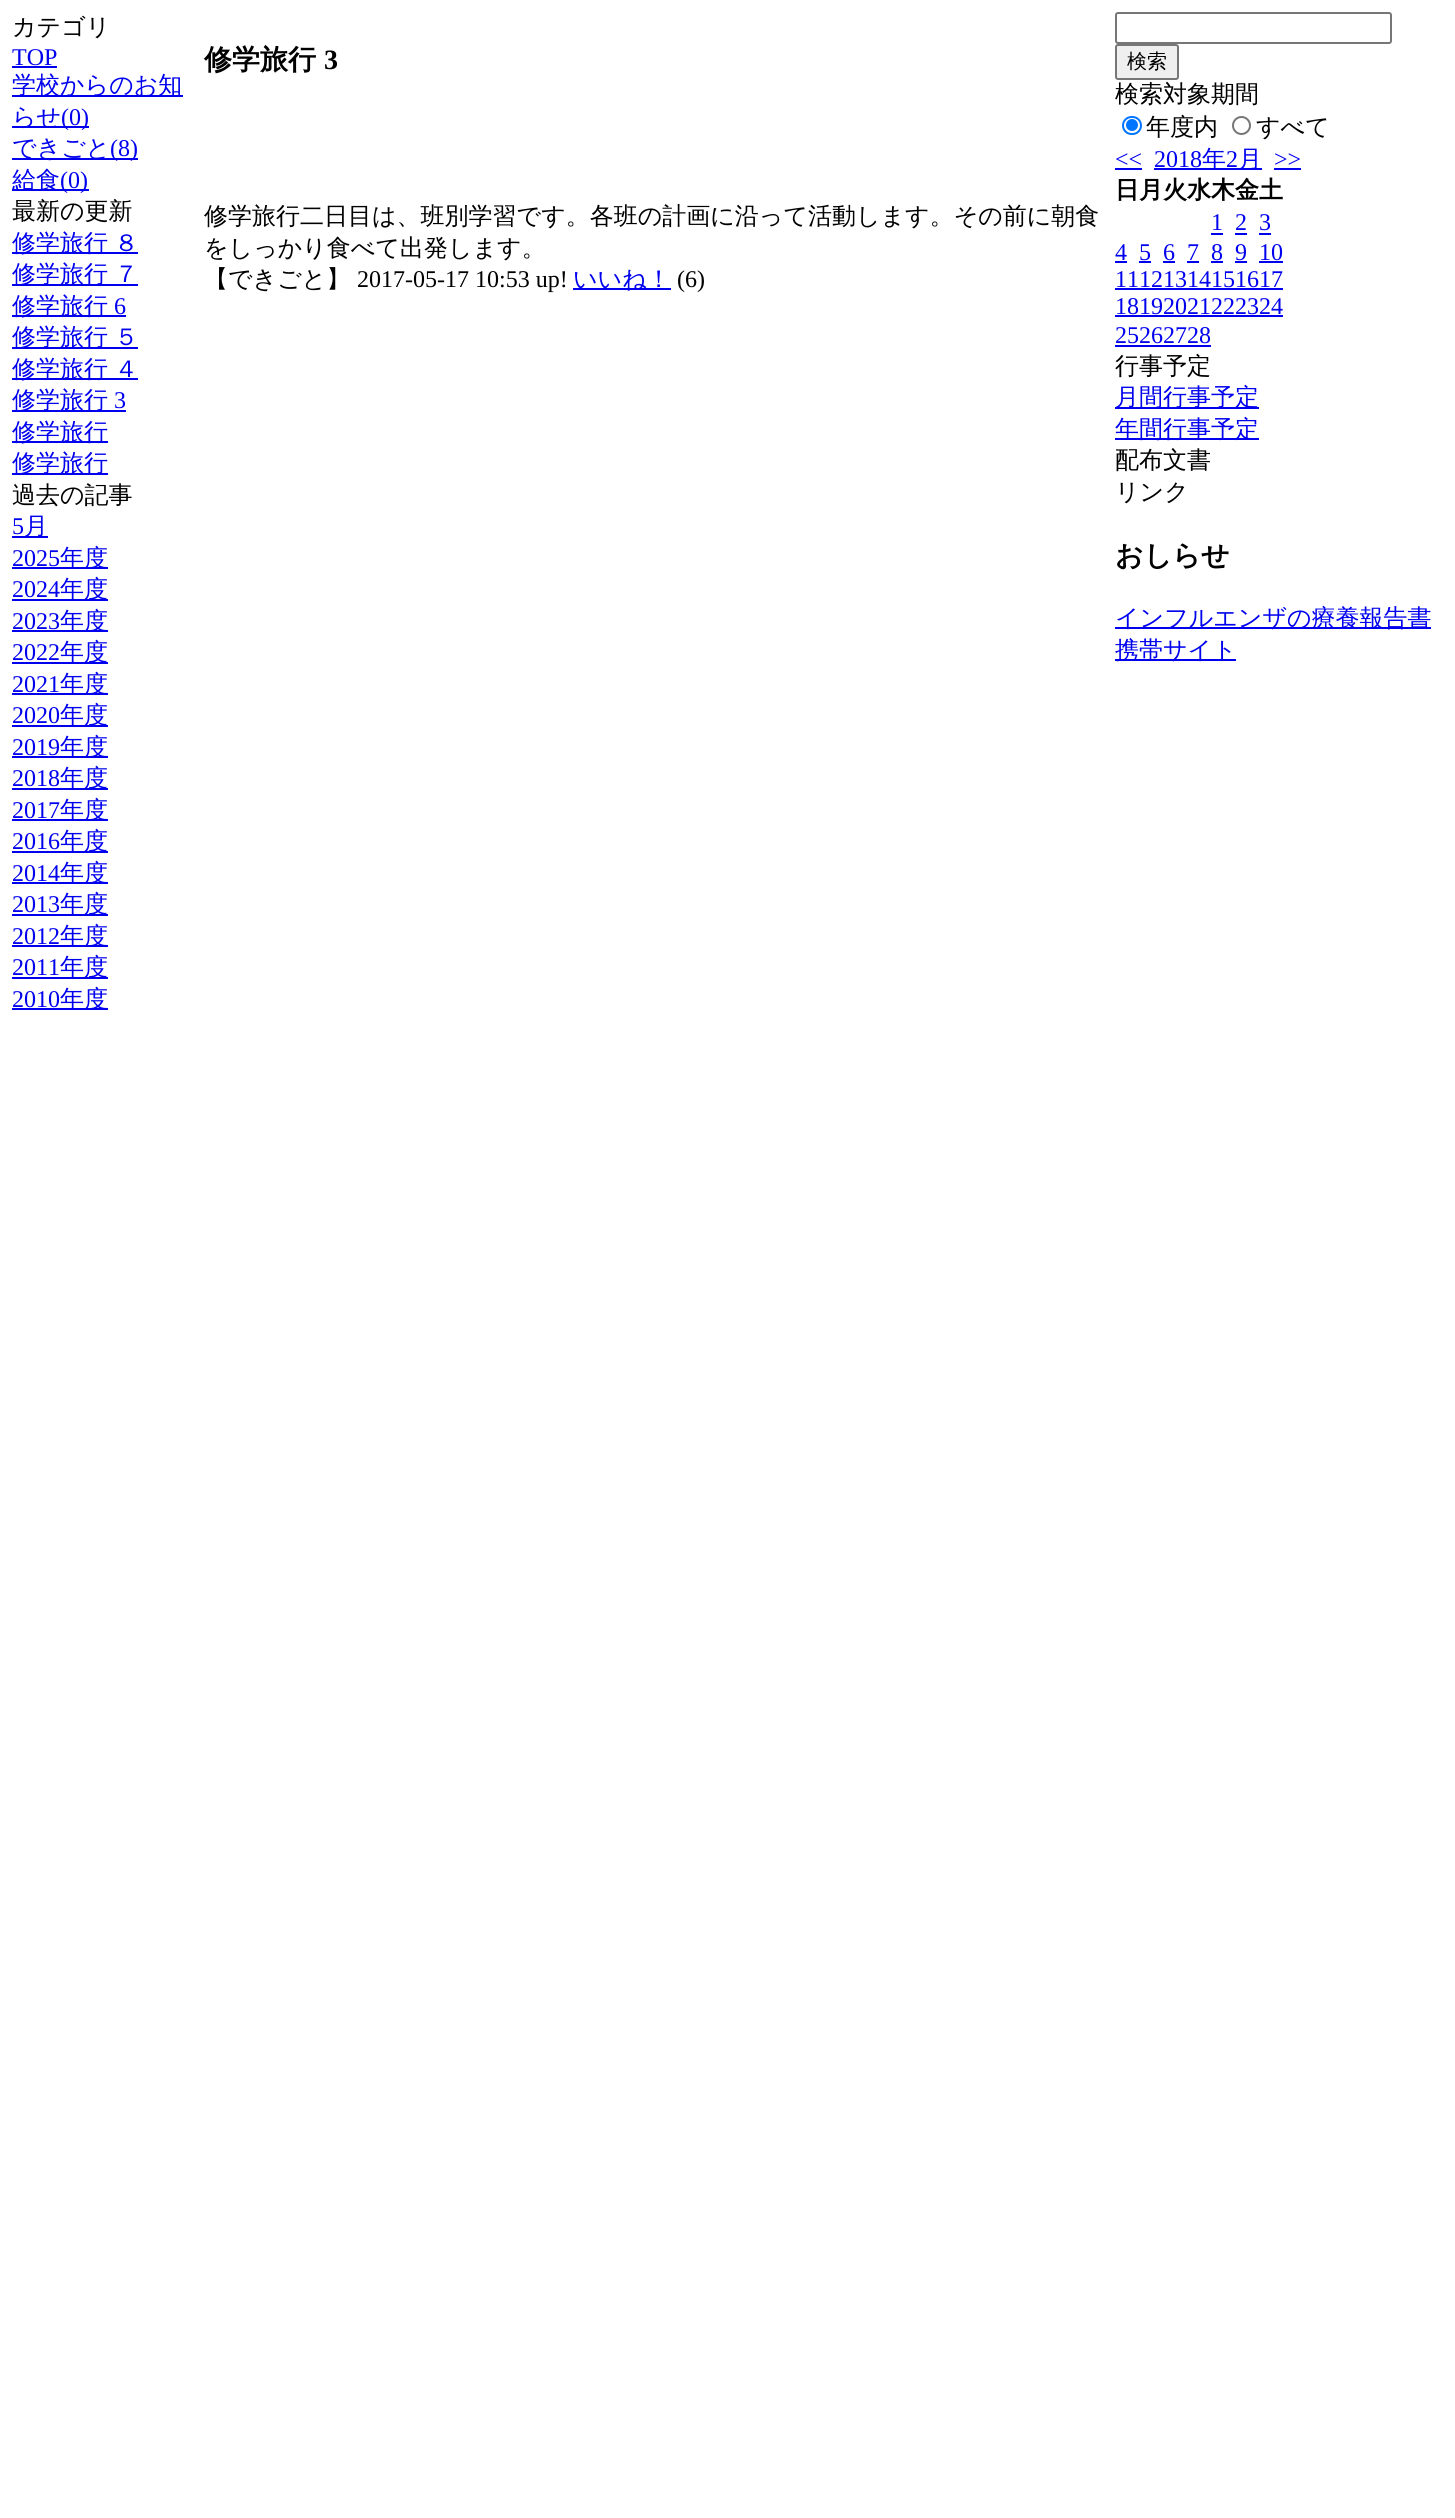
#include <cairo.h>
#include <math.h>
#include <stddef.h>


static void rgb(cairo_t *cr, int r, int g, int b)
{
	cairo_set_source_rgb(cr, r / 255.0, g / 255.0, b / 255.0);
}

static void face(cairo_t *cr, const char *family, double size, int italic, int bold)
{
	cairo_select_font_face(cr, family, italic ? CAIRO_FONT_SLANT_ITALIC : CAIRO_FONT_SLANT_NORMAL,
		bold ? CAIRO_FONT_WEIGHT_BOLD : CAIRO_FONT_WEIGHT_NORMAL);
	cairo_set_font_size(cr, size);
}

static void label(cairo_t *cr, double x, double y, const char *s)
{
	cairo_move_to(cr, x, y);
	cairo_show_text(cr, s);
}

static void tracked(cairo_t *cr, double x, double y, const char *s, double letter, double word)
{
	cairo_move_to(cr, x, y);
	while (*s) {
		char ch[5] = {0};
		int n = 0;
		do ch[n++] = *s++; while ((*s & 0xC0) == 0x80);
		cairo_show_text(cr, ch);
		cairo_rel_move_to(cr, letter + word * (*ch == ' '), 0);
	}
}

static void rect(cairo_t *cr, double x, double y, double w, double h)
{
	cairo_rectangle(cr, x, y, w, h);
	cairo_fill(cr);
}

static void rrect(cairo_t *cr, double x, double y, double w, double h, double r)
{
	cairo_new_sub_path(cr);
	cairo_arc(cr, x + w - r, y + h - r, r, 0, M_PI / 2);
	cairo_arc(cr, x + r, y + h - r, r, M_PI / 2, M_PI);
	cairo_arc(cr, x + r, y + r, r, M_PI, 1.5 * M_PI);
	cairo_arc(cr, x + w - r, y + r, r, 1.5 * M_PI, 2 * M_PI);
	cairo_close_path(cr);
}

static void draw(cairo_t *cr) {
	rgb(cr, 255, 255, 255);
	cairo_paint(cr);
	face(cr, "WenQuanYi Zen Hei Medium", 24, 0, 0);
	rgb(cr, 0, 0, 0);
	label(cr, 12, 35, "カテゴリ");
	face(cr, "Liberation Serif", 24, 0, 0);
	rgb(cr, 0, 0, 238);
	label(cr, 12, 65, "TOP");
	rect(cr, 12, 66, 45, 2);
	rect(cr, 12, 95, 171, 2);
	face(cr, "WenQuanYi Zen Hei Medium", 24, 0, 0);
	label(cr, 12, 93, "学校からのお知");
	rect(cr, 12, 126, 77, 2);
	label(cr, 12, 125, "らせ");
	face(cr, "Liberation Serif", 24, 0, 0);
	label(cr, 61, 125, "(0)");
	rect(cr, 12, 158, 126, 2);
	face(cr, "WenQuanYi Zen Hei Medium", 24, 0, 0);
	label(cr, 12, 156, "できごと");
	face(cr, "Liberation Serif", 24, 0, 0);
	label(cr, 110, 156, "(8)");
	rect(cr, 12, 189, 77, 2);
	face(cr, "WenQuanYi Zen Hei Medium", 24, 0, 0);
	label(cr, 12, 188, "給食");
	face(cr, "Liberation Serif", 24, 0, 0);
	label(cr, 60, 188, "(0)");
	face(cr, "WenQuanYi Zen Hei Medium", 24, 0, 0);
	rgb(cr, 0, 0, 0);
	label(cr, 12, 219, "最新の更新");
	rgb(cr, 0, 0, 238);
	rect(cr, 12, 252, 126, 2);
	tracked(cr, 12, 251, "修学旅行 ８", 0, -1);
	rect(cr, 12, 284, 126, 2);
	tracked(cr, 12, 282, "修学旅行 ７", 0, -1);
	rect(cr, 12, 315, 114, 2);
	label(cr, 12, 314, "修学旅行");
	face(cr, "Liberation Serif", 24, 0, 0);
	label(cr, 114, 314, "6");
	rect(cr, 12, 347, 126, 2);
	face(cr, "WenQuanYi Zen Hei Medium", 24, 0, 0);
	tracked(cr, 12, 345, "修学旅行 ５", 0, -1);
	rect(cr, 12, 378, 126, 2);
	tracked(cr, 12, 377, "修学旅行 ４", 0, -1);
	rect(cr, 12, 410, 114, 2);
	label(cr, 12, 408, "修学旅行");
	face(cr, "Liberation Serif", 24, 0, 0);
	label(cr, 114, 408, "3");
	rect(cr, 12, 441, 96, 2);
	face(cr, "WenQuanYi Zen Hei Medium", 24, 0, 0);
	label(cr, 12, 440, "修学旅行");
	rect(cr, 12, 473, 96, 2);
	label(cr, 12, 471, "修学旅行");
	rgb(cr, 0, 0, 0);
	label(cr, 12, 503, "過去の記事");
	face(cr, "Liberation Serif", 24, 0, 0);
	rgb(cr, 0, 0, 238);
	label(cr, 12, 534, "5");
	rect(cr, 12, 536, 36, 2);
	face(cr, "WenQuanYi Zen Hei Medium", 24, 0, 0);
	label(cr, 24, 534, "月");
	face(cr, "Liberation Serif", 24, 0, 0);
	label(cr, 12, 566, "2025");
	rect(cr, 12, 567, 96, 2);
	face(cr, "WenQuanYi Zen Hei Medium", 24, 0, 0);
	label(cr, 60, 566, "年度");
	face(cr, "Liberation Serif", 24, 0, 0);
	label(cr, 12, 597, "2024");
	rect(cr, 12, 599, 96, 2);
	face(cr, "WenQuanYi Zen Hei Medium", 24, 0, 0);
	label(cr, 60, 597, "年度");
	face(cr, "Liberation Serif", 24, 0, 0);
	label(cr, 12, 629, "2023");
	rect(cr, 12, 630, 96, 2);
	face(cr, "WenQuanYi Zen Hei Medium", 24, 0, 0);
	label(cr, 60, 629, "年度");
	face(cr, "Liberation Serif", 24, 0, 0);
	label(cr, 12, 660, "2022");
	rect(cr, 12, 662, 96, 2);
	face(cr, "WenQuanYi Zen Hei Medium", 24, 0, 0);
	label(cr, 60, 660, "年度");
	face(cr, "Liberation Serif", 24, 0, 0);
	label(cr, 12, 692, "2021");
	rect(cr, 12, 693, 96, 2);
	face(cr, "WenQuanYi Zen Hei Medium", 24, 0, 0);
	label(cr, 60, 692, "年度");
	face(cr, "Liberation Serif", 24, 0, 0);
	label(cr, 12, 723, "2020");
	rect(cr, 12, 725, 96, 2);
	face(cr, "WenQuanYi Zen Hei Medium", 24, 0, 0);
	label(cr, 60, 723, "年度");
	face(cr, "Liberation Serif", 24, 0, 0);
	label(cr, 12, 755, "2019");
	rect(cr, 12, 756, 96, 2);
	face(cr, "WenQuanYi Zen Hei Medium", 24, 0, 0);
	label(cr, 60, 755, "年度");
	face(cr, "Liberation Serif", 24, 0, 0);
	label(cr, 12, 786, "2018");
	rect(cr, 12, 788, 96, 2);
	face(cr, "WenQuanYi Zen Hei Medium", 24, 0, 0);
	label(cr, 60, 786, "年度");
	face(cr, "Liberation Serif", 24, 0, 0);
	label(cr, 12, 818, "2017");
	rect(cr, 12, 819, 96, 2);
	face(cr, "WenQuanYi Zen Hei Medium", 24, 0, 0);
	label(cr, 60, 818, "年度");
	face(cr, "Liberation Serif", 24, 0, 0);
	label(cr, 12, 849, "2016");
	rect(cr, 12, 851, 96, 2);
	face(cr, "WenQuanYi Zen Hei Medium", 24, 0, 0);
	label(cr, 60, 849, "年度");
	face(cr, "Liberation Serif", 24, 0, 0);
	label(cr, 12, 881, "2014");
	rect(cr, 12, 882, 96, 2);
	face(cr, "WenQuanYi Zen Hei Medium", 24, 0, 0);
	label(cr, 60, 881, "年度");
	face(cr, "Liberation Serif", 24, 0, 0);
	label(cr, 12, 912, "2013");
	rect(cr, 12, 914, 96, 2);
	face(cr, "WenQuanYi Zen Hei Medium", 24, 0, 0);
	label(cr, 60, 912, "年度");
	face(cr, "Liberation Serif", 24, 0, 0);
	label(cr, 12, 944, "2012");
	rect(cr, 12, 945, 96, 2);
	face(cr, "WenQuanYi Zen Hei Medium", 24, 0, 0);
	label(cr, 60, 944, "年度");
	face(cr, "Liberation Serif", 24, 0, 0);
	label(cr, 12, 975, "2011");
	rect(cr, 12, 977, 96, 2);
	face(cr, "WenQuanYi Zen Hei Medium", 24, 0, 0);
	label(cr, 60, 975, "年度");
	face(cr, "Liberation Serif", 24, 0, 0);
	label(cr, 12, 1007, "2010");
	rect(cr, 12, 1008, 96, 2);
	face(cr, "WenQuanYi Zen Hei Medium", 24, 0, 0);
	label(cr, 60, 1007, "年度");
	face(cr, "WenQuanYi Zen Hei", 28, 0, 1);
	rgb(cr, 0, 0, 0);
	label(cr, 204, 69, "修学旅行");
	face(cr, "Liberation Serif", 28, 0, 1);
	label(cr, 324, 69, "3");
	face(cr, "WenQuanYi Zen Hei Medium", 24, 0, 0);
	label(cr, 204, 224, "修学旅行二日目は、班別学習です。各班の計画に沿って活動します。その前に朝食");
	label(cr, 204, 256, "をしっかり食べて出発します。");
	label(cr, 204, 287, "【できごと】");
	face(cr, "Liberation Serif", 24, 0, 0);
	label(cr, 357, 287, "2017-05-17 10:53 up!");
	rgb(cr, 0, 0, 238);
	rect(cr, 573, 288, 98, 2);
	face(cr, "WenQuanYi Zen Hei Medium", 24, 0, 0);
	label(cr, 573, 287, "いいね！");
	face(cr, "Liberation Serif", 24, 0, 0);
	rgb(cr, 0, 0, 0);
	label(cr, 677, 287, "(6)");
	rrect(cr, 1116, 13, 275, 30, 2);
	rgb(cr, 118, 118, 118);
	cairo_stroke(cr);
	rgb(cr, 239, 239, 239);
	rrect(cr, 1116, 45, 62, 34, 2);
	cairo_fill_preserve(cr);
	rgb(cr, 118, 118, 118);
	cairo_stroke(cr);
	face(cr, "WenQuanYi Zen Hei Medium", 20, 0, 0);
	rgb(cr, 0, 0, 0);
	label(cr, 1127, 68, "検索");
	face(cr, "WenQuanYi Zen Hei Medium", 24, 0, 0);
	label(cr, 1115, 102, "検索対象期間");
	rrect(cr, 1123, 117, 18, 17, 8.5);
	rgb(cr, 0, 117, 255);
	cairo_stroke(cr);
	cairo_arc(cr, 1132, 125, 6, 0, 2 * M_PI);
	cairo_fill(cr);
	rgb(cr, 0, 0, 0);
	label(cr, 1146, 135, "年度内");
	cairo_new_path(cr);
	cairo_arc(cr, 1241.5, 125.5, 8.5, 0, 2 * M_PI);
	rgb(cr, 118, 118, 118);
	cairo_stroke(cr);
	rgb(cr, 0, 0, 0);
	label(cr, 1256, 135, "すべて");
	face(cr, "Liberation Serif", 24, 0, 0);
	rgb(cr, 0, 0, 238);
	label(cr, 1115, 167, "<<");
	rect(cr, 1115, 168, 27, 2);
	label(cr, 1154, 167, "2018");
	rect(cr, 1154, 168, 108, 2);
	face(cr, "WenQuanYi Zen Hei Medium", 24, 0, 0);
	label(cr, 1202, 167, "年");
	face(cr, "Liberation Serif", 24, 0, 0);
	label(cr, 1226, 167, "2");
	face(cr, "WenQuanYi Zen Hei Medium", 24, 0, 0);
	label(cr, 1238, 167, "月");
	face(cr, "Liberation Serif", 24, 0, 0);
	label(cr, 1274, 167, ">>");
	rect(cr, 1274, 168, 27, 2);
	face(cr, "WenQuanYi Zen Hei", 24, 0, 1);
	rgb(cr, 0, 0, 0);
	label(cr, 1115, 198, "日月火水木金土");
	face(cr, "Liberation Serif", 24, 0, 0);
	rgb(cr, 0, 0, 238);
	label(cr, 1211, 230, "1");
	rect(cr, 1211, 233, 12, 2);
	label(cr, 1235, 230, "2");
	rect(cr, 1235, 233, 12, 2);
	label(cr, 1259, 230, "3");
	rect(cr, 1259, 233, 12, 2);
	label(cr, 1115, 260, "4");
	rect(cr, 1115, 261, 12, 2);
	label(cr, 1139, 260, "5");
	rect(cr, 1139, 261, 12, 2);
	label(cr, 1163, 260, "6");
	rect(cr, 1163, 261, 12, 2);
	label(cr, 1187, 260, "7");
	rect(cr, 1187, 261, 12, 2);
	label(cr, 1211, 260, "8");
	rect(cr, 1211, 261, 12, 2);
	label(cr, 1235, 260, "9");
	rect(cr, 1235, 261, 12, 2);
	label(cr, 1259, 260, "10");
	rect(cr, 1259, 261, 24, 2);
	label(cr, 1115, 287, "11121314151617");
	rect(cr, 1115, 288, 168, 2);
	label(cr, 1115, 314, "18192021222324");
	rect(cr, 1115, 315, 168, 2);
	label(cr, 1115, 343, "25262728");
	rect(cr, 1115, 345, 96, 2);
	face(cr, "WenQuanYi Zen Hei Medium", 24, 0, 0);
	rgb(cr, 0, 0, 0);
	label(cr, 1115, 374, "行事予定");
	rgb(cr, 0, 0, 238);
	rect(cr, 1115, 407, 144, 2);
	label(cr, 1115, 405, "月間行事予定");
	rect(cr, 1115, 438, 144, 2);
	label(cr, 1115, 437, "年間行事予定");
	rgb(cr, 0, 0, 0);
	label(cr, 1115, 468, "配布文書");
	label(cr, 1115, 500, "リンク");
	face(cr, "WenQuanYi Zen Hei", 28, 0, 1);
	label(cr, 1115, 565, "おしらせ");
	rgb(cr, 0, 0, 238);
	rect(cr, 1115, 627, 316, 2);
	face(cr, "WenQuanYi Zen Hei Medium", 24, 0, 0);
	label(cr, 1115, 626, "インフルエンザの療養報告書");
	rect(cr, 1115, 659, 121, 2);
	label(cr, 1115, 658, "携帯サイト");
}

int main(void) {
	cairo_surface_t *surface = cairo_image_surface_create(CAIRO_FORMAT_RGB24, 1455, 2518);
	cairo_t *cr = cairo_create(surface);
	cairo_font_options_t *options = cairo_font_options_create();
	cairo_font_options_set_hint_metrics(options, CAIRO_HINT_METRICS_OFF);
	cairo_font_options_set_hint_style(options, CAIRO_HINT_STYLE_NONE);
	cairo_set_font_options(cr, options);
	cairo_set_miter_limit(cr, 4);
	draw(cr);
	cairo_surface_write_to_png(surface, "render.png");
	cairo_font_options_destroy(options);
	cairo_destroy(cr);
	cairo_surface_destroy(surface);
	return 0;
}
